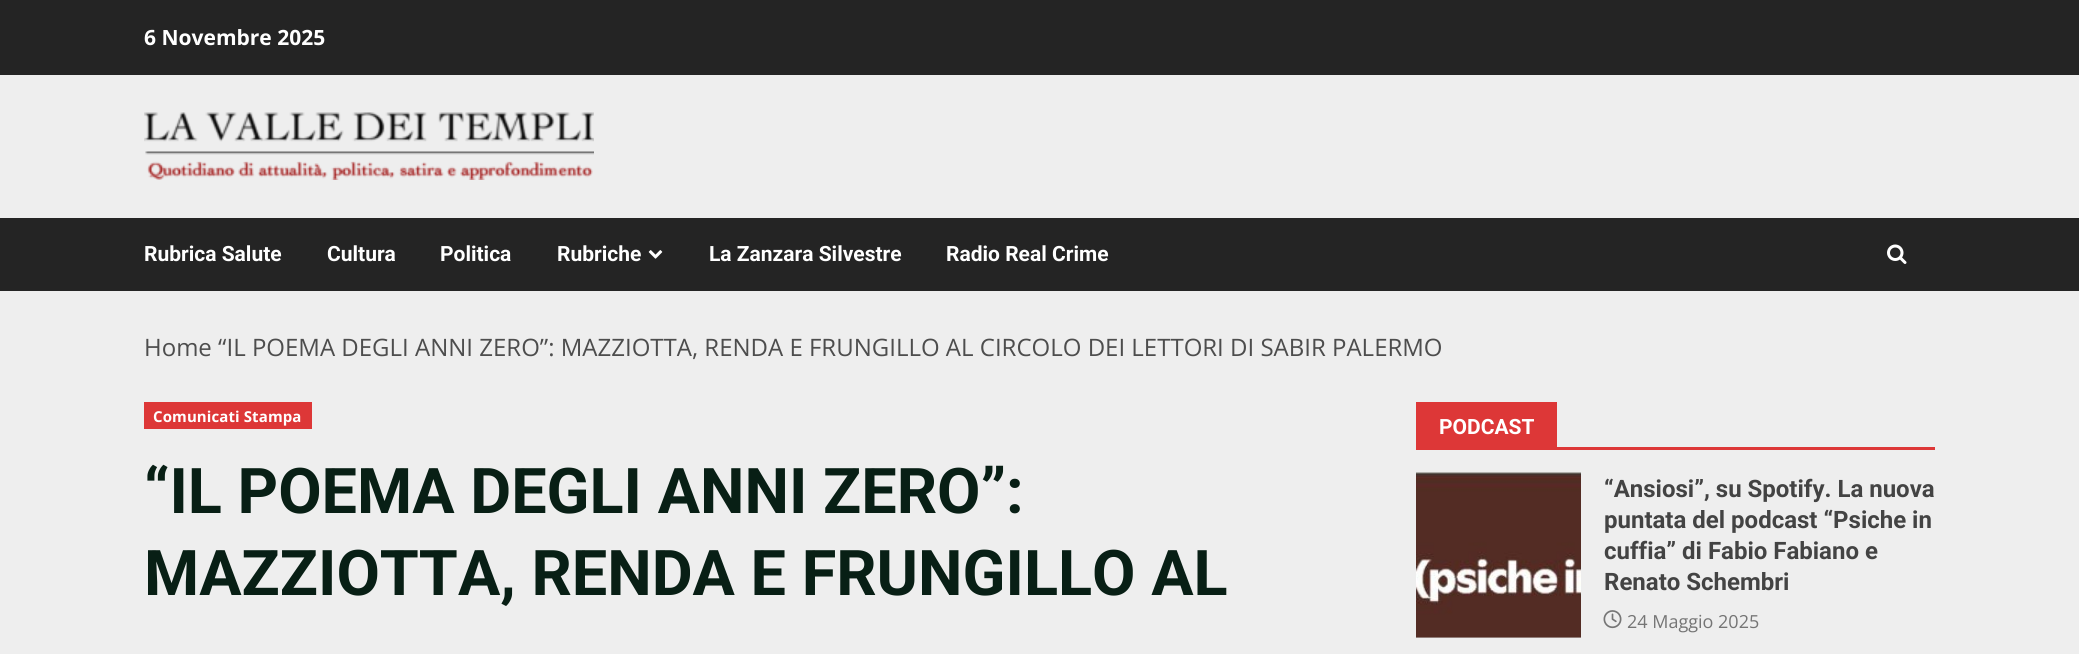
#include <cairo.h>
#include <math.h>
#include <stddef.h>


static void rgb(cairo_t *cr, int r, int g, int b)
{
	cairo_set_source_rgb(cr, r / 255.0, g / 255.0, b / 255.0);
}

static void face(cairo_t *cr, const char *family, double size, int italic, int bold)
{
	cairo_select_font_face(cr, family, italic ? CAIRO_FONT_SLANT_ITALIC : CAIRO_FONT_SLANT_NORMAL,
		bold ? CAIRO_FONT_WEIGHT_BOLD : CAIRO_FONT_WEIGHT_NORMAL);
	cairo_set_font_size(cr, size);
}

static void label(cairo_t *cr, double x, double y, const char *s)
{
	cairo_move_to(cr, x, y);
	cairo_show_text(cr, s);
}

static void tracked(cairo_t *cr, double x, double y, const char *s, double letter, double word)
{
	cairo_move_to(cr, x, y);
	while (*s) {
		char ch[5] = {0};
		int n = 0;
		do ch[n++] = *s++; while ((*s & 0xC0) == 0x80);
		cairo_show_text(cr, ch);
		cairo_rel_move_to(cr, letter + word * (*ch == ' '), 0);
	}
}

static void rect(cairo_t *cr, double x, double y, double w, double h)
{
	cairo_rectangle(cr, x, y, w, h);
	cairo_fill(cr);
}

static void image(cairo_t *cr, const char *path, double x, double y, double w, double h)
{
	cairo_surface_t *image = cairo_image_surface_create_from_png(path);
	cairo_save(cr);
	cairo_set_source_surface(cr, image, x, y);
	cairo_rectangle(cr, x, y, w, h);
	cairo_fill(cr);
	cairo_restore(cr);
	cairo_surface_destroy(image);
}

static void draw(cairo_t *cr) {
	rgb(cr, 238, 238, 238);
	cairo_paint(cr);
	rgb(cr, 36, 36, 36);
	rect(cr, 0, 0, 2079, 75);
	face(cr, "Open Sans", 21, 0, 1);
	rgb(cr, 255, 255, 255);
	label(cr, 144, 45, "6 Novembre 2025");
	image(cr, "image0.png", 144, 112, 450, 68);
	rgb(cr, 36, 36, 36);
	rect(cr, 0, 218, 2079, 73);
	face(cr, "Roboto", 21, 0, 1);
	rgb(cr, 255, 255, 255);
	label(cr, 144, 261, "Rubrica Salute");
	label(cr, 327, 261, "Cultura");
	label(cr, 440, 261, "Politica");
	label(cr, 557, 261, "Rubriche");
	image(cr, "image1.png", 648, 250, 15, 9);
	label(cr, 709, 261, "La Zanzara Silvestre");
	label(cr, 946, 261, "Radio Real Crime");
	image(cr, "image2.png", 1887, 244, 20, 20);
	face(cr, "Open Sans", 24, 0, 0);
	rgb(cr, 77, 77, 77);
	label(cr, 144, 356, "Home “IL POEMA DEGLI ANNI ZERO”: MAZZIOTTA, RENDA E FRUNGILLO AL CIRCOLO DEI LETTORI DI SABIR PALERMO");
	rgb(cr, 221, 55, 55);
	rect(cr, 144, 402, 168, 27);
	face(cr, "Open Sans", 15, 0, 1);
	rgb(cr, 255, 255, 255);
	tracked(cr, 153, 422, "Comunicati Stampa", 0.1, 0);
	face(cr, "Roboto", 63, 0, 1);
	rgb(cr, 8, 31, 21);
	label(cr, 144, 513, "“IL POEMA DEGLI ANNI ZERO”:");
	label(cr, 144, 595, "MAZZIOTTA, RENDA E FRUNGILLO AL");
	rgb(cr, 221, 55, 55);
	rect(cr, 1416, 447, 519, 3);
	rect(cr, 1416, 402, 141, 45);
	face(cr, "Roboto", 21, 0, 1);
	rgb(cr, 255, 255, 255);
	label(cr, 1439, 434, "PODCAST");
	rgb(cr, 205, 205, 205);
	rect(cr, 1416, 637, 165, 1);
	image(cr, "image3.png", 1416, 472, 165, 166);
	face(cr, "Roboto", 24, 0, 1);
	rgb(cr, 67, 67, 67);
	label(cr, 1604, 497, "“Ansiosi”, su Spotify. La nuova");
	label(cr, 1604, 528, "puntata del podcast “Psiche in");
	label(cr, 1604, 559, "cuffia” di Fabio Fabiano e");
	label(cr, 1604, 590, "Renato Schembri");
	image(cr, "image4.png", 1603, 610, 19, 19);
	face(cr, "Open Sans", 18, 0, 0);
	rgb(cr, 117, 117, 117);
	label(cr, 1627, 628, "24 Maggio 2025");
}

int main(void) {
	cairo_surface_t *surface = cairo_image_surface_create(CAIRO_FORMAT_RGB24, 2079, 654);
	cairo_t *cr = cairo_create(surface);
	cairo_font_options_t *options = cairo_font_options_create();
	cairo_font_options_set_hint_metrics(options, CAIRO_HINT_METRICS_OFF);
	cairo_font_options_set_hint_style(options, CAIRO_HINT_STYLE_NONE);
	cairo_set_font_options(cr, options);
	cairo_set_miter_limit(cr, 4);
	draw(cr);
	cairo_surface_write_to_png(surface, "render.png");
	cairo_font_options_destroy(options);
	cairo_destroy(cr);
	cairo_surface_destroy(surface);
	return 0;
}
